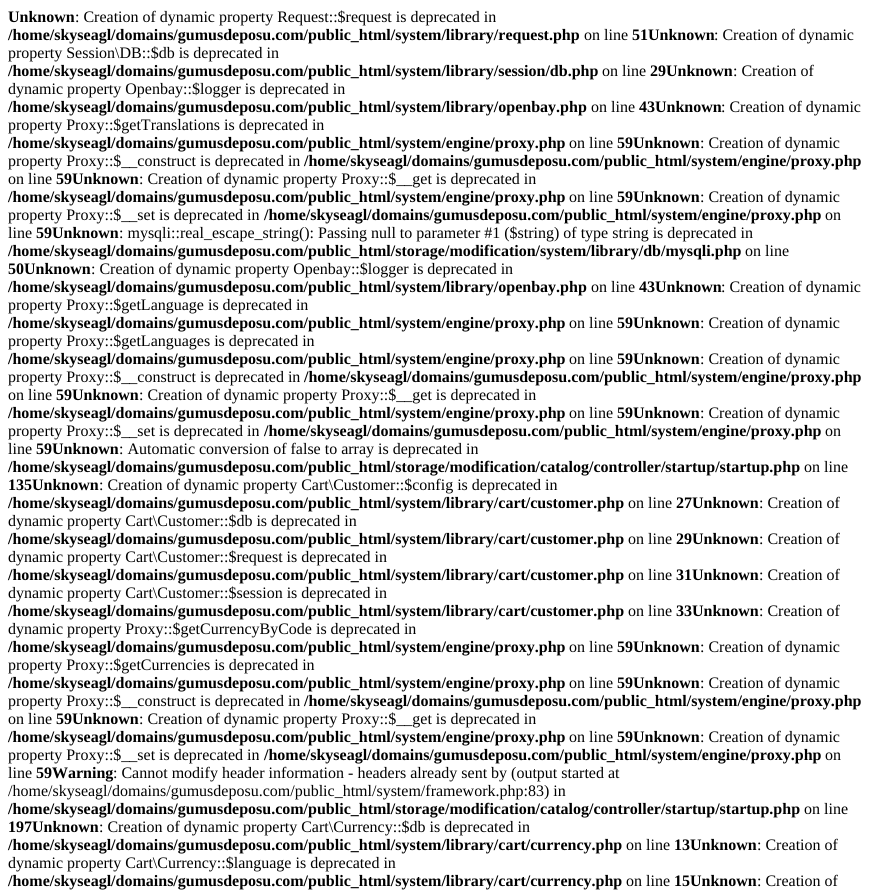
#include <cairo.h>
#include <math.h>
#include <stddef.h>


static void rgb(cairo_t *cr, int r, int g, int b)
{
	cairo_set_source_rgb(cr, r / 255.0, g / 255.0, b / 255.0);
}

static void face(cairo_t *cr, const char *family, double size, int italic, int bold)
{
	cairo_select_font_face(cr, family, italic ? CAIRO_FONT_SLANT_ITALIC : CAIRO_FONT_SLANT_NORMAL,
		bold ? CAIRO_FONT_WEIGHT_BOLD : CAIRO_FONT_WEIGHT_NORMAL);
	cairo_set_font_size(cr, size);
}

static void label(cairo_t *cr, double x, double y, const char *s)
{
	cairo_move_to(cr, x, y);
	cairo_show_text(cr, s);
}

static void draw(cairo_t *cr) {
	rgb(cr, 255, 255, 255);
	cairo_paint(cr);
	face(cr, "Liberation Serif", 16, 0, 1);
	rgb(cr, 0, 0, 0);
	label(cr, 8, 22, "Unknown");
	face(cr, "Liberation Serif", 16, 0, 0);
	label(cr, 75, 22, ": Creation of dynamic property Request::$request is deprecated in");
	face(cr, "Liberation Serif", 16, 0, 1);
	label(cr, 8, 40, "/home/skyseagl/domains/gumusdeposu.com/public_html/system/library/request.php");
	face(cr, "Liberation Serif", 16, 0, 0);
	label(cr, 584, 40, "on line");
	face(cr, "Liberation Serif", 16, 0, 1);
	label(cr, 632, 40, "51Unknown");
	face(cr, "Liberation Serif", 16, 0, 0);
	label(cr, 714, 40, ": Creation of dynamic");
	label(cr, 8, 58, "property Session\\DB::$db is deprecated in");
	face(cr, "Liberation Serif", 16, 0, 1);
	label(cr, 8, 76, "/home/skyseagl/domains/gumusdeposu.com/public_html/system/library/session/db.php");
	face(cr, "Liberation Serif", 16, 0, 0);
	label(cr, 602, 76, "on line");
	face(cr, "Liberation Serif", 16, 0, 1);
	label(cr, 650, 76, "29Unknown");
	face(cr, "Liberation Serif", 16, 0, 0);
	label(cr, 733, 76, ": Creation of");
	label(cr, 8, 94, "dynamic property Openbay::$logger is deprecated in");
	face(cr, "Liberation Serif", 16, 0, 1);
	label(cr, 8, 112, "/home/skyseagl/domains/gumusdeposu.com/public_html/system/library/openbay.php");
	face(cr, "Liberation Serif", 16, 0, 0);
	label(cr, 591, 112, "on line");
	face(cr, "Liberation Serif", 16, 0, 1);
	label(cr, 639, 112, "43Unknown");
	face(cr, "Liberation Serif", 16, 0, 0);
	label(cr, 721, 112, ": Creation of dynamic");
	label(cr, 8, 130, "property Proxy::$getTranslations is deprecated in");
	face(cr, "Liberation Serif", 16, 0, 1);
	label(cr, 8, 148, "/home/skyseagl/domains/gumusdeposu.com/public_html/system/engine/proxy.php");
	face(cr, "Liberation Serif", 16, 0, 0);
	label(cr, 569, 148, "on line");
	face(cr, "Liberation Serif", 16, 0, 1);
	label(cr, 617, 148, "59Unknown");
	face(cr, "Liberation Serif", 16, 0, 0);
	label(cr, 700, 148, ": Creation of dynamic");
	label(cr, 8, 166, "property Proxy::$__construct is deprecated in");
	face(cr, "Liberation Serif", 16, 0, 1);
	label(cr, 304, 166, "/home/skyseagl/domains/gumusdeposu.com/public_html/system/engine/proxy.php");
	face(cr, "Liberation Serif", 16, 0, 0);
	label(cr, 8, 184, "on line");
	face(cr, "Liberation Serif", 16, 0, 1);
	label(cr, 56, 184, "59Unknown");
	face(cr, "Liberation Serif", 16, 0, 0);
	label(cr, 139, 184, ": Creation of dynamic property Proxy::$__get is deprecated in");
	face(cr, "Liberation Serif", 16, 0, 1);
	label(cr, 8, 202, "/home/skyseagl/domains/gumusdeposu.com/public_html/system/engine/proxy.php");
	face(cr, "Liberation Serif", 16, 0, 0);
	label(cr, 569, 202, "on line");
	face(cr, "Liberation Serif", 16, 0, 1);
	label(cr, 617, 202, "59Unknown");
	face(cr, "Liberation Serif", 16, 0, 0);
	label(cr, 700, 202, ": Creation of dynamic");
	label(cr, 8, 220, "property Proxy::$__set is deprecated in");
	face(cr, "Liberation Serif", 16, 0, 1);
	label(cr, 264, 220, "/home/skyseagl/domains/gumusdeposu.com/public_html/system/engine/proxy.php");
	face(cr, "Liberation Serif", 16, 0, 0);
	label(cr, 825, 220, "on");
	label(cr, 8, 238, "line");
	face(cr, "Liberation Serif", 16, 0, 1);
	label(cr, 36, 238, "59Unknown");
	face(cr, "Liberation Serif", 16, 0, 0);
	label(cr, 119, 238, ": mysqli::real_escape_string(): Passing null to parameter #1 ($string) of type string is deprecated in");
	face(cr, "Liberation Serif", 16, 0, 1);
	label(cr, 8, 256, "/home/skyseagl/domains/gumusdeposu.com/public_html/storage/modification/system/library/db/mysqli.php");
	face(cr, "Liberation Serif", 16, 0, 0);
	label(cr, 745, 256, "on line");
	face(cr, "Liberation Serif", 16, 0, 1);
	label(cr, 8, 274, "50Unknown");
	face(cr, "Liberation Serif", 16, 0, 0);
	label(cr, 91, 274, ": Creation of dynamic property Openbay::$logger is deprecated in");
	face(cr, "Liberation Serif", 16, 0, 1);
	label(cr, 8, 292, "/home/skyseagl/domains/gumusdeposu.com/public_html/system/library/openbay.php");
	face(cr, "Liberation Serif", 16, 0, 0);
	label(cr, 591, 292, "on line");
	face(cr, "Liberation Serif", 16, 0, 1);
	label(cr, 639, 292, "43Unknown");
	face(cr, "Liberation Serif", 16, 0, 0);
	label(cr, 721, 292, ": Creation of dynamic");
	label(cr, 8, 310, "property Proxy::$getLanguage is deprecated in");
	face(cr, "Liberation Serif", 16, 0, 1);
	label(cr, 8, 328, "/home/skyseagl/domains/gumusdeposu.com/public_html/system/engine/proxy.php");
	face(cr, "Liberation Serif", 16, 0, 0);
	label(cr, 569, 328, "on line");
	face(cr, "Liberation Serif", 16, 0, 1);
	label(cr, 617, 328, "59Unknown");
	face(cr, "Liberation Serif", 16, 0, 0);
	label(cr, 700, 328, ": Creation of dynamic");
	label(cr, 8, 346, "property Proxy::$getLanguages is deprecated in");
	face(cr, "Liberation Serif", 16, 0, 1);
	label(cr, 8, 364, "/home/skyseagl/domains/gumusdeposu.com/public_html/system/engine/proxy.php");
	face(cr, "Liberation Serif", 16, 0, 0);
	label(cr, 569, 364, "on line");
	face(cr, "Liberation Serif", 16, 0, 1);
	label(cr, 617, 364, "59Unknown");
	face(cr, "Liberation Serif", 16, 0, 0);
	label(cr, 700, 364, ": Creation of dynamic");
	label(cr, 8, 382, "property Proxy::$__construct is deprecated in");
	face(cr, "Liberation Serif", 16, 0, 1);
	label(cr, 304, 382, "/home/skyseagl/domains/gumusdeposu.com/public_html/system/engine/proxy.php");
	face(cr, "Liberation Serif", 16, 0, 0);
	label(cr, 8, 400, "on line");
	face(cr, "Liberation Serif", 16, 0, 1);
	label(cr, 56, 400, "59Unknown");
	face(cr, "Liberation Serif", 16, 0, 0);
	label(cr, 139, 400, ": Creation of dynamic property Proxy::$__get is deprecated in");
	face(cr, "Liberation Serif", 16, 0, 1);
	label(cr, 8, 418, "/home/skyseagl/domains/gumusdeposu.com/public_html/system/engine/proxy.php");
	face(cr, "Liberation Serif", 16, 0, 0);
	label(cr, 569, 418, "on line");
	face(cr, "Liberation Serif", 16, 0, 1);
	label(cr, 617, 418, "59Unknown");
	face(cr, "Liberation Serif", 16, 0, 0);
	label(cr, 700, 418, ": Creation of dynamic");
	label(cr, 8, 436, "property Proxy::$__set is deprecated in");
	face(cr, "Liberation Serif", 16, 0, 1);
	label(cr, 264, 436, "/home/skyseagl/domains/gumusdeposu.com/public_html/system/engine/proxy.php");
	face(cr, "Liberation Serif", 16, 0, 0);
	label(cr, 825, 436, "on");
	label(cr, 8, 454, "line");
	face(cr, "Liberation Serif", 16, 0, 1);
	label(cr, 36, 454, "59Unknown");
	face(cr, "Liberation Serif", 16, 0, 0);
	label(cr, 119, 454, ": Automatic conversion of false to array is deprecated in");
	face(cr, "Liberation Serif", 16, 0, 1);
	label(cr, 8, 472, "/home/skyseagl/domains/gumusdeposu.com/public_html/storage/modification/catalog/controller/startup/startup.php");
	face(cr, "Liberation Serif", 16, 0, 0);
	label(cr, 804, 472, "on line");
	face(cr, "Liberation Serif", 16, 0, 1);
	label(cr, 8, 490, "135Unknown");
	face(cr, "Liberation Serif", 16, 0, 0);
	label(cr, 99, 490, ": Creation of dynamic property Cart\\Customer::$config is deprecated in");
	face(cr, "Liberation Serif", 16, 0, 1);
	label(cr, 8, 508, "/home/skyseagl/domains/gumusdeposu.com/public_html/system/library/cart/customer.php");
	face(cr, "Liberation Serif", 16, 0, 0);
	label(cr, 628, 508, "on line");
	face(cr, "Liberation Serif", 16, 0, 1);
	label(cr, 676, 508, "27Unknown");
	face(cr, "Liberation Serif", 16, 0, 0);
	label(cr, 759, 508, ": Creation of");
	label(cr, 8, 526, "dynamic property Cart\\Customer::$db is deprecated in");
	face(cr, "Liberation Serif", 16, 0, 1);
	label(cr, 8, 544, "/home/skyseagl/domains/gumusdeposu.com/public_html/system/library/cart/customer.php");
	face(cr, "Liberation Serif", 16, 0, 0);
	label(cr, 628, 544, "on line");
	face(cr, "Liberation Serif", 16, 0, 1);
	label(cr, 676, 544, "29Unknown");
	face(cr, "Liberation Serif", 16, 0, 0);
	label(cr, 759, 544, ": Creation of");
	label(cr, 8, 562, "dynamic property Cart\\Customer::$request is deprecated in");
	face(cr, "Liberation Serif", 16, 0, 1);
	label(cr, 8, 580, "/home/skyseagl/domains/gumusdeposu.com/public_html/system/library/cart/customer.php");
	face(cr, "Liberation Serif", 16, 0, 0);
	label(cr, 628, 580, "on line");
	face(cr, "Liberation Serif", 16, 0, 1);
	label(cr, 676, 580, "31Unknown");
	face(cr, "Liberation Serif", 16, 0, 0);
	label(cr, 759, 580, ": Creation of");
	label(cr, 8, 598, "dynamic property Cart\\Customer::$session is deprecated in");
	face(cr, "Liberation Serif", 16, 0, 1);
	label(cr, 8, 616, "/home/skyseagl/domains/gumusdeposu.com/public_html/system/library/cart/customer.php");
	face(cr, "Liberation Serif", 16, 0, 0);
	label(cr, 628, 616, "on line");
	face(cr, "Liberation Serif", 16, 0, 1);
	label(cr, 676, 616, "33Unknown");
	face(cr, "Liberation Serif", 16, 0, 0);
	label(cr, 759, 616, ": Creation of");
	label(cr, 8, 634, "dynamic property Proxy::$getCurrencyByCode is deprecated in");
	face(cr, "Liberation Serif", 16, 0, 1);
	label(cr, 8, 652, "/home/skyseagl/domains/gumusdeposu.com/public_html/system/engine/proxy.php");
	face(cr, "Liberation Serif", 16, 0, 0);
	label(cr, 569, 652, "on line");
	face(cr, "Liberation Serif", 16, 0, 1);
	label(cr, 617, 652, "59Unknown");
	face(cr, "Liberation Serif", 16, 0, 0);
	label(cr, 700, 652, ": Creation of dynamic");
	label(cr, 8, 670, "property Proxy::$getCurrencies is deprecated in");
	face(cr, "Liberation Serif", 16, 0, 1);
	label(cr, 8, 688, "/home/skyseagl/domains/gumusdeposu.com/public_html/system/engine/proxy.php");
	face(cr, "Liberation Serif", 16, 0, 0);
	label(cr, 569, 688, "on line");
	face(cr, "Liberation Serif", 16, 0, 1);
	label(cr, 617, 688, "59Unknown");
	face(cr, "Liberation Serif", 16, 0, 0);
	label(cr, 700, 688, ": Creation of dynamic");
	label(cr, 8, 706, "property Proxy::$__construct is deprecated in");
	face(cr, "Liberation Serif", 16, 0, 1);
	label(cr, 304, 706, "/home/skyseagl/domains/gumusdeposu.com/public_html/system/engine/proxy.php");
	face(cr, "Liberation Serif", 16, 0, 0);
	label(cr, 8, 724, "on line");
	face(cr, "Liberation Serif", 16, 0, 1);
	label(cr, 56, 724, "59Unknown");
	face(cr, "Liberation Serif", 16, 0, 0);
	label(cr, 139, 724, ": Creation of dynamic property Proxy::$__get is deprecated in");
	face(cr, "Liberation Serif", 16, 0, 1);
	label(cr, 8, 742, "/home/skyseagl/domains/gumusdeposu.com/public_html/system/engine/proxy.php");
	face(cr, "Liberation Serif", 16, 0, 0);
	label(cr, 569, 742, "on line");
	face(cr, "Liberation Serif", 16, 0, 1);
	label(cr, 617, 742, "59Unknown");
	face(cr, "Liberation Serif", 16, 0, 0);
	label(cr, 700, 742, ": Creation of dynamic");
	label(cr, 8, 760, "property Proxy::$__set is deprecated in");
	face(cr, "Liberation Serif", 16, 0, 1);
	label(cr, 264, 760, "/home/skyseagl/domains/gumusdeposu.com/public_html/system/engine/proxy.php");
	face(cr, "Liberation Serif", 16, 0, 0);
	label(cr, 825, 760, "on");
	label(cr, 8, 778, "line");
	face(cr, "Liberation Serif", 16, 0, 1);
	label(cr, 36, 778, "59Warning");
	face(cr, "Liberation Serif", 16, 0, 0);
	label(cr, 113, 778, ": Cannot modify header information - headers already sent by (output started at");
	label(cr, 8, 796, "/home/skyseagl/domains/gumusdeposu.com/public_html/system/framework.php:83) in");
	face(cr, "Liberation Serif", 16, 0, 1);
	label(cr, 8, 814, "/home/skyseagl/domains/gumusdeposu.com/public_html/storage/modification/catalog/controller/startup/startup.php");
	face(cr, "Liberation Serif", 16, 0, 0);
	label(cr, 804, 814, "on line");
	face(cr, "Liberation Serif", 16, 0, 1);
	label(cr, 8, 832, "197Unknown");
	face(cr, "Liberation Serif", 16, 0, 0);
	label(cr, 99, 832, ": Creation of dynamic property Cart\\Currency::$db is deprecated in");
	face(cr, "Liberation Serif", 16, 0, 1);
	label(cr, 8, 850, "/home/skyseagl/domains/gumusdeposu.com/public_html/system/library/cart/currency.php");
	face(cr, "Liberation Serif", 16, 0, 0);
	label(cr, 626, 850, "on line");
	face(cr, "Liberation Serif", 16, 0, 1);
	label(cr, 674, 850, "13Unknown");
	face(cr, "Liberation Serif", 16, 0, 0);
	label(cr, 757, 850, ": Creation of");
	label(cr, 8, 868, "dynamic property Cart\\Currency::$language is deprecated in");
	face(cr, "Liberation Serif", 16, 0, 1);
	label(cr, 8, 886, "/home/skyseagl/domains/gumusdeposu.com/public_html/system/library/cart/currency.php");
	face(cr, "Liberation Serif", 16, 0, 0);
	label(cr, 626, 886, "on line");
	face(cr, "Liberation Serif", 16, 0, 1);
	label(cr, 674, 886, "15Unknown");
	face(cr, "Liberation Serif", 16, 0, 0);
	label(cr, 757, 886, ": Creation of");
}

int main(void) {
	cairo_surface_t *surface = cairo_image_surface_create(CAIRO_FORMAT_RGB24, 870, 894);
	cairo_t *cr = cairo_create(surface);
	cairo_font_options_t *options = cairo_font_options_create();
	cairo_font_options_set_hint_metrics(options, CAIRO_HINT_METRICS_OFF);
	cairo_font_options_set_hint_style(options, CAIRO_HINT_STYLE_NONE);
	cairo_set_font_options(cr, options);
	cairo_set_miter_limit(cr, 4);
	draw(cr);
	cairo_surface_write_to_png(surface, "render.png");
	cairo_font_options_destroy(options);
	cairo_destroy(cr);
	cairo_surface_destroy(surface);
	return 0;
}
